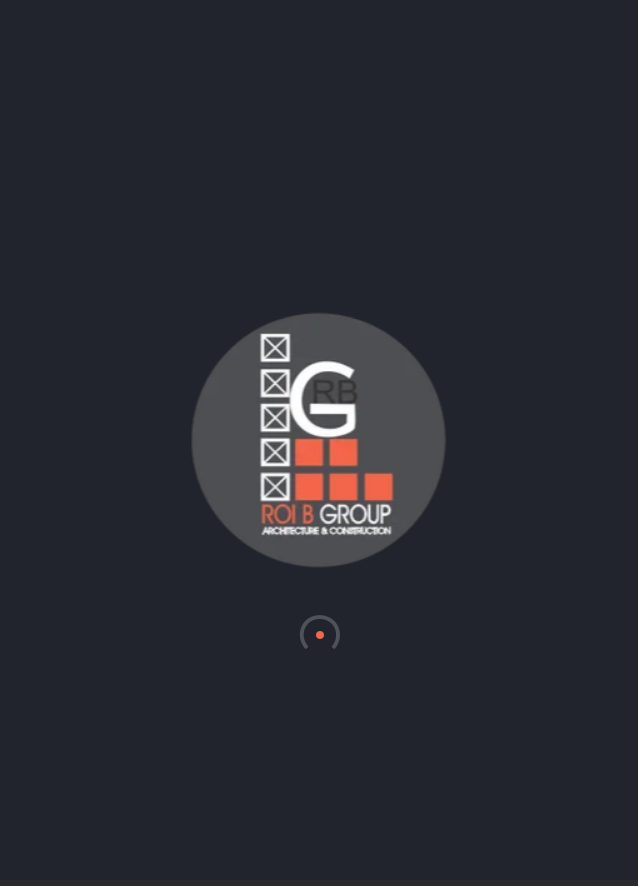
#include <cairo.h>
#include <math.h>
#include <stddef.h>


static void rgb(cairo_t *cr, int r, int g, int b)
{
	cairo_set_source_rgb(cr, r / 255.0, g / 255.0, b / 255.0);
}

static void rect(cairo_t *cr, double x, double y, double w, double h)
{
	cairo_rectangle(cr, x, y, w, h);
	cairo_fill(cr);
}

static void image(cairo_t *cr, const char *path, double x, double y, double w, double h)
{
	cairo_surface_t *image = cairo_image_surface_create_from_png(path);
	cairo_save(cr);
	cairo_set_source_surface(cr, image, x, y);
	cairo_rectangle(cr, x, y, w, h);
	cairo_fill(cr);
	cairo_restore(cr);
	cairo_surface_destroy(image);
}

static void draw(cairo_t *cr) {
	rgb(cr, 42, 42, 46);
	cairo_paint(cr);
	rgb(cr, 33, 36, 45);
	rect(cr, 0, 0, 638, 880);
	image(cr, "image0.png", 191, 312, 256, 256);
	cairo_new_path(cr);
	cairo_move_to(cr, 307, 648);
	cairo_curve_to(cr, 303, 643.5, 301, 637.5, 302, 631.5);
	cairo_curve_to(cr, 306.5, 610, 338, 613.5, 338, 635);
	cairo_curve_to(cr, 338, 640, 336, 644.5, 333, 648);
	rgb(cr, 80, 82, 89);
	cairo_set_line_width(cr, 3.8);
	cairo_stroke(cr);
	rgb(cr, 243, 102, 74);
	cairo_arc(cr, 320, 635, 4, 0, 2 * M_PI);
	cairo_fill(cr);
}

int main(void) {
	cairo_surface_t *surface = cairo_image_surface_create(CAIRO_FORMAT_RGB24, 638, 886);
	cairo_t *cr = cairo_create(surface);
	cairo_font_options_t *options = cairo_font_options_create();
	cairo_font_options_set_hint_metrics(options, CAIRO_HINT_METRICS_OFF);
	cairo_font_options_set_hint_style(options, CAIRO_HINT_STYLE_NONE);
	cairo_set_font_options(cr, options);
	cairo_set_miter_limit(cr, 4);
	draw(cr);
	cairo_surface_write_to_png(surface, "render.png");
	cairo_font_options_destroy(options);
	cairo_destroy(cr);
	cairo_surface_destroy(surface);
	return 0;
}
